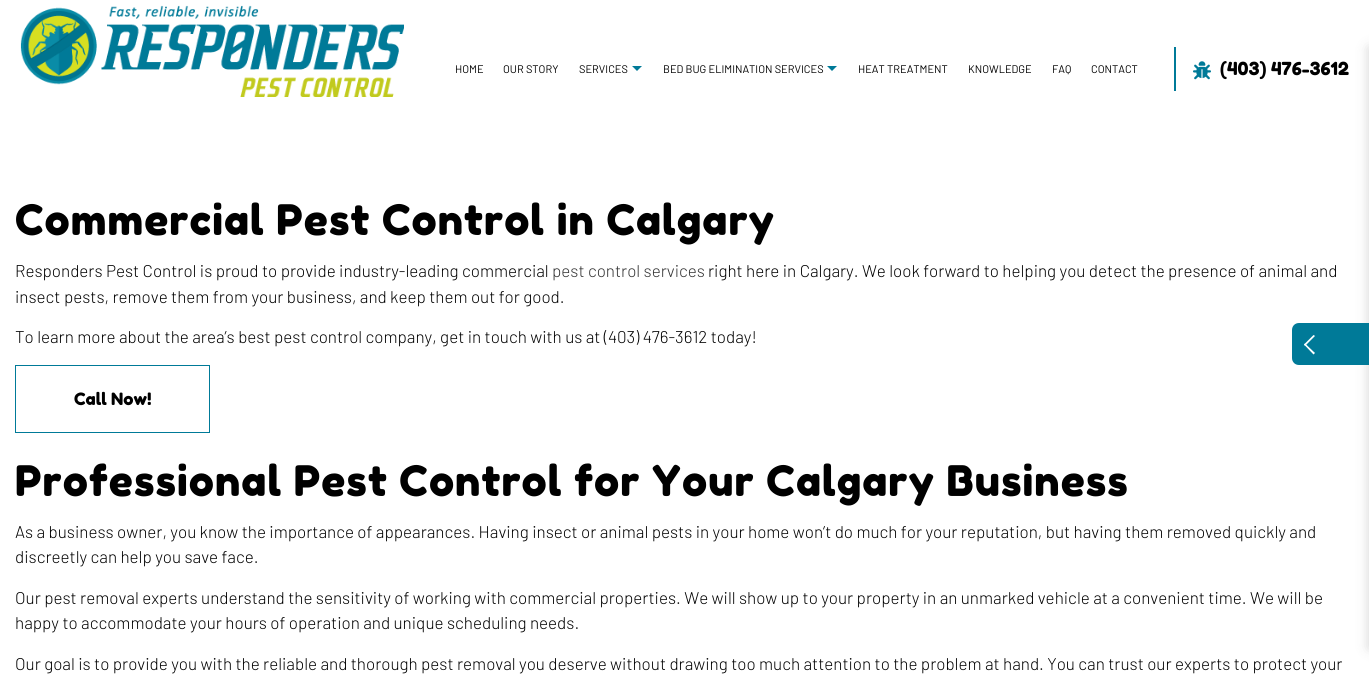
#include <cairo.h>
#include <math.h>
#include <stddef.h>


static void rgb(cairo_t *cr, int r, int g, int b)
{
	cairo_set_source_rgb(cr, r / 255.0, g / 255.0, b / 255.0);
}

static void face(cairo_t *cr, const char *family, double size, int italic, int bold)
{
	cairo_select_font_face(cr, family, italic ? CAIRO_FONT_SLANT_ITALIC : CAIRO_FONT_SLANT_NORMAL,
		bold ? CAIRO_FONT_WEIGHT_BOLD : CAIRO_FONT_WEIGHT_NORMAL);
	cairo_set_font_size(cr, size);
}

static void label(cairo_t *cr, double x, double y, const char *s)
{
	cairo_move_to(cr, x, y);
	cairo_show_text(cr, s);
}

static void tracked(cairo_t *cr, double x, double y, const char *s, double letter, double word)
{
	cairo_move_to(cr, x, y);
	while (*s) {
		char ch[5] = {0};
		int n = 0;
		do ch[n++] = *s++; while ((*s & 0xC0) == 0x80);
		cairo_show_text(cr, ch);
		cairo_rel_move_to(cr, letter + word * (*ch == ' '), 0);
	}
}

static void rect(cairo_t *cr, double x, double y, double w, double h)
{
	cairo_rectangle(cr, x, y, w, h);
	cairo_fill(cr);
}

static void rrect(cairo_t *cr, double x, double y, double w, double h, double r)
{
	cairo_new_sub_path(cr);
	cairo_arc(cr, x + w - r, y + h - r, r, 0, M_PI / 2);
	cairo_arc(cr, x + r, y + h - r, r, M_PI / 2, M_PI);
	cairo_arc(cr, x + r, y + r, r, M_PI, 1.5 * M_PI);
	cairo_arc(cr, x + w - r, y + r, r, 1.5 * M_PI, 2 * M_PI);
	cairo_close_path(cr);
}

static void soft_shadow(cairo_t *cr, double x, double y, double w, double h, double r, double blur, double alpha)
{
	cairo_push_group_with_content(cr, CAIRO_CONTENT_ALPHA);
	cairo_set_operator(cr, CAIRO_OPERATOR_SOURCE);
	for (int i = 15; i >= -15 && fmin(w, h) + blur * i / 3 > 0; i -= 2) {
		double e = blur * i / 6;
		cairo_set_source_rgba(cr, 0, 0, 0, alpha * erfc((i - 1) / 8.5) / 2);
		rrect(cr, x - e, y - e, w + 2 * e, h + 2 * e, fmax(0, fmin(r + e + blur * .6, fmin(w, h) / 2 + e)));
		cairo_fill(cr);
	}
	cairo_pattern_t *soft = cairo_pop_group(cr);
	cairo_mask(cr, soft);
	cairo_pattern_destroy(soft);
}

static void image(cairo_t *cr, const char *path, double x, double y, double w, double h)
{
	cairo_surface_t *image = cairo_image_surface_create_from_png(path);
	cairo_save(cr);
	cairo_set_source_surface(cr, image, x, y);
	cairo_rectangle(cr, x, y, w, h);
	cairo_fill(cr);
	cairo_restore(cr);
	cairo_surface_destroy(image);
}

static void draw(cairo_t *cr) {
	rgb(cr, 255, 255, 255);
	cairo_paint(cr);
	rgb(cr, 0, 0, 0);
	soft_shadow(cr, 1369, 48, 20, 600, 0, 6.5, 0.17);
	rgb(cr, 0, 122, 152);
	cairo_new_path(cr);
	cairo_move_to(cr, 1299, 323);
	cairo_line_to(cr, 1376, 323);
	cairo_line_to(cr, 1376, 365);
	cairo_line_to(cr, 1299, 365);
	cairo_curve_to(cr, 1295, 365, 1292, 362, 1292, 358);
	cairo_line_to(cr, 1292, 330);
	cairo_curve_to(cr, 1292, 326, 1295, 323, 1299, 323);
	cairo_close_path(cr);
	cairo_fill(cr);
	rgb(cr, 255, 255, 255);
	cairo_new_path(cr);
	cairo_move_to(cr, 1304, 344.5);
	cairo_line_to(cr, 1313.5, 335);
	cairo_line_to(cr, 1315, 336);
	cairo_line_to(cr, 1305, 346);
	cairo_close_path(cr);
	cairo_fill(cr);
	cairo_new_path(cr);
	cairo_move_to(cr, 1304, 344.5);
	cairo_line_to(cr, 1305, 343.5);
	cairo_line_to(cr, 1315, 353);
	cairo_line_to(cr, 1313.5, 354.5);
	cairo_close_path(cr);
	cairo_fill(cr);
	image(cr, "image0.png", 20, 5, 384, 92);
	face(cr, "Barlow", 11, 0, 0);
	rgb(cr, 0, 0, 0);
	label(cr, 455, 73, "HOME");
	label(cr, 503, 73, "OUR STORY");
	label(cr, 579, 73, "SERVICES");
	rgb(cr, 0, 122, 152);
	cairo_new_path(cr);
	cairo_move_to(cr, 632, 66);
	cairo_line_to(cr, 642, 66);
	cairo_line_to(cr, 637, 71);
	cairo_close_path(cr);
	cairo_fill(cr);
	rgb(cr, 0, 0, 0);
	label(cr, 663, 73, "BED BUG ELIMINATION SERVICES");
	rgb(cr, 0, 122, 152);
	cairo_new_path(cr);
	cairo_move_to(cr, 827, 66);
	cairo_line_to(cr, 837, 66);
	cairo_line_to(cr, 832, 71);
	cairo_close_path(cr);
	cairo_fill(cr);
	rgb(cr, 0, 0, 0);
	label(cr, 858, 73, "HEAT TREATMENT");
	label(cr, 968, 73, "KNOWLEDGE");
	label(cr, 1052, 73, "FAQ");
	label(cr, 1091, 73, "CONTACT");
	rgb(cr, 0, 122, 152);
	rect(cr, 1174, 47, 2, 44);
	image(cr, "image1.png", 1193, 61, 18, 19);
	face(cr, "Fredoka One", 18, 0, 0);
	rgb(cr, 0, 0, 0);
	label(cr, 1220, 75, "(403) 476-3612");
	face(cr, "Fredoka One", 42, 0, 0);
	tracked(cr, 15, 235, "Commercial Pest Control in Calgary", 1, 0);
	face(cr, "Barlow Light", 17, 0, 0);
	label(cr, 15, 277, "Responders Pest Control is proud to provide industry-leading commercial");
	rgb(cr, 51, 51, 51);
	label(cr, 552, 277, "pest control services");
	rgb(cr, 0, 0, 0);
	label(cr, 708, 277, "right here in Calgary. We look forward to helping you detect the presence of animal and");
	label(cr, 15, 303, "insect pests, remove them from your business, and keep them out for good.");
	label(cr, 15, 343, "To learn more about the area’s best pest control company, get in touch with us at (403) 476-3612 today!");
	cairo_rectangle(cr, 15.5, 365.5, 194, 67);
	rgb(cr, 0, 122, 152);
	cairo_set_line_width(cr, 1);
	cairo_stroke(cr);
	face(cr, "Fredoka One", 17, 0, 0);
	rgb(cr, 0, 0, 0);
	label(cr, 74, 405, "Call Now!");
	face(cr, "Fredoka One", 42, 0, 0);
	tracked(cr, 15, 496, "Professional Pest Control for Your Calgary Business", 1, 0);
	face(cr, "Barlow Light", 17, 0, 0);
	label(cr, 15, 538, "As a business owner, you know the importance of appearances. Having insect or animal pests in your home won’t do much for your reputation, but having them removed quickly and");
	label(cr, 15, 563, "discreetly can help you save face.");
	label(cr, 15, 604, "Our pest removal experts understand the sensitivity of working with commercial properties. We will show up to your property in an unmarked vehicle at a convenient time. We will be");
	label(cr, 15, 629, "happy to accommodate your hours of operation and unique scheduling needs.");
	label(cr, 15, 670, "Our goal is to provide you with the reliable and thorough pest removal you deserve without drawing too much attention to the problem at hand. You can trust our experts to protect your");
}

int main(void) {
	cairo_surface_t *surface = cairo_image_surface_create(CAIRO_FORMAT_RGB24, 1369, 687);
	cairo_t *cr = cairo_create(surface);
	cairo_font_options_t *options = cairo_font_options_create();
	cairo_font_options_set_hint_metrics(options, CAIRO_HINT_METRICS_OFF);
	cairo_font_options_set_hint_style(options, CAIRO_HINT_STYLE_NONE);
	cairo_set_font_options(cr, options);
	cairo_set_miter_limit(cr, 4);
	draw(cr);
	cairo_surface_write_to_png(surface, "render.png");
	cairo_font_options_destroy(options);
	cairo_destroy(cr);
	cairo_surface_destroy(surface);
	return 0;
}
